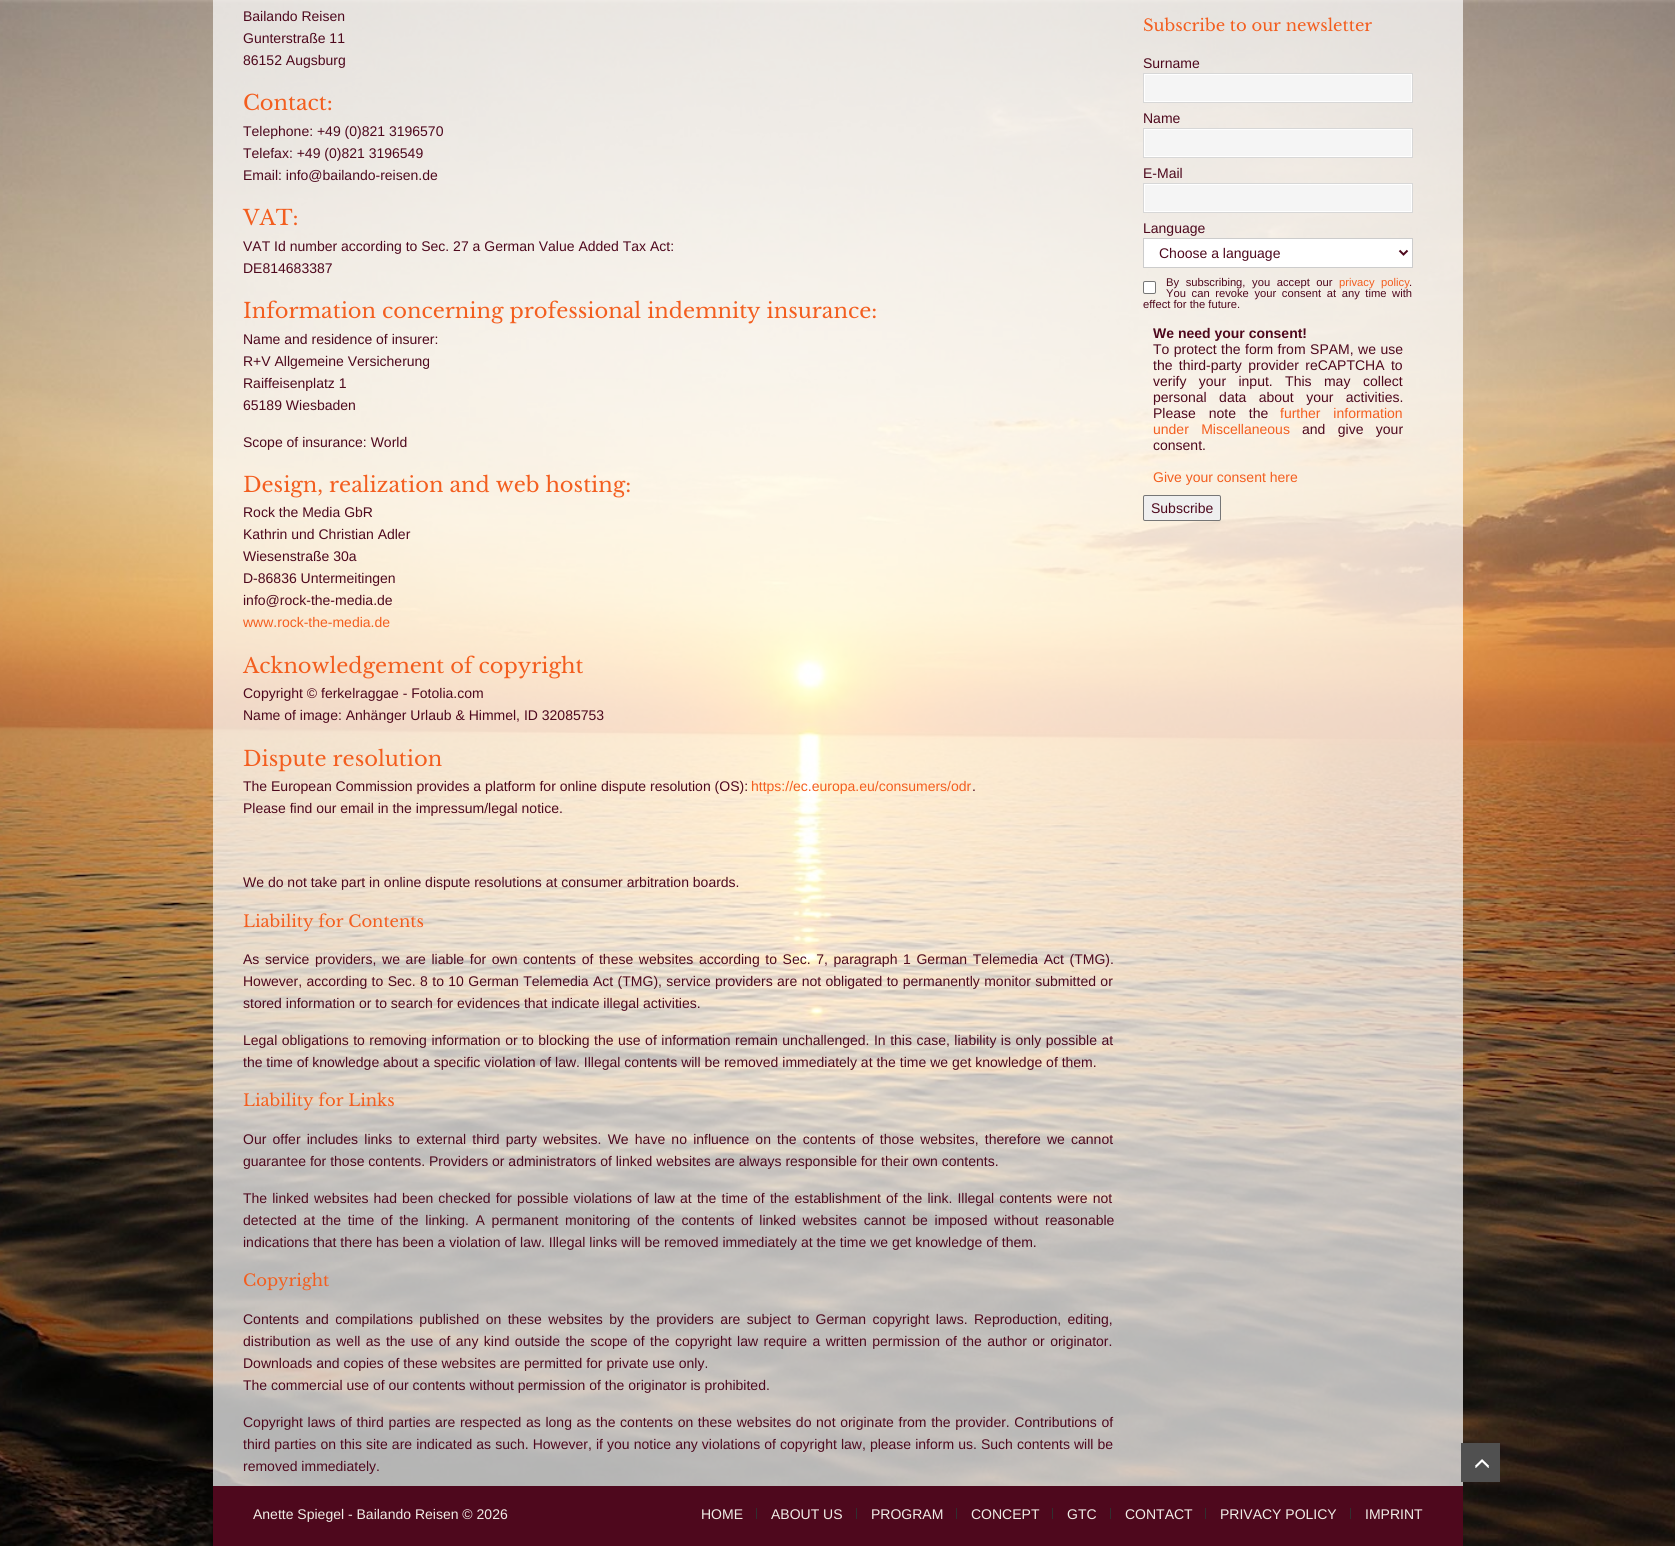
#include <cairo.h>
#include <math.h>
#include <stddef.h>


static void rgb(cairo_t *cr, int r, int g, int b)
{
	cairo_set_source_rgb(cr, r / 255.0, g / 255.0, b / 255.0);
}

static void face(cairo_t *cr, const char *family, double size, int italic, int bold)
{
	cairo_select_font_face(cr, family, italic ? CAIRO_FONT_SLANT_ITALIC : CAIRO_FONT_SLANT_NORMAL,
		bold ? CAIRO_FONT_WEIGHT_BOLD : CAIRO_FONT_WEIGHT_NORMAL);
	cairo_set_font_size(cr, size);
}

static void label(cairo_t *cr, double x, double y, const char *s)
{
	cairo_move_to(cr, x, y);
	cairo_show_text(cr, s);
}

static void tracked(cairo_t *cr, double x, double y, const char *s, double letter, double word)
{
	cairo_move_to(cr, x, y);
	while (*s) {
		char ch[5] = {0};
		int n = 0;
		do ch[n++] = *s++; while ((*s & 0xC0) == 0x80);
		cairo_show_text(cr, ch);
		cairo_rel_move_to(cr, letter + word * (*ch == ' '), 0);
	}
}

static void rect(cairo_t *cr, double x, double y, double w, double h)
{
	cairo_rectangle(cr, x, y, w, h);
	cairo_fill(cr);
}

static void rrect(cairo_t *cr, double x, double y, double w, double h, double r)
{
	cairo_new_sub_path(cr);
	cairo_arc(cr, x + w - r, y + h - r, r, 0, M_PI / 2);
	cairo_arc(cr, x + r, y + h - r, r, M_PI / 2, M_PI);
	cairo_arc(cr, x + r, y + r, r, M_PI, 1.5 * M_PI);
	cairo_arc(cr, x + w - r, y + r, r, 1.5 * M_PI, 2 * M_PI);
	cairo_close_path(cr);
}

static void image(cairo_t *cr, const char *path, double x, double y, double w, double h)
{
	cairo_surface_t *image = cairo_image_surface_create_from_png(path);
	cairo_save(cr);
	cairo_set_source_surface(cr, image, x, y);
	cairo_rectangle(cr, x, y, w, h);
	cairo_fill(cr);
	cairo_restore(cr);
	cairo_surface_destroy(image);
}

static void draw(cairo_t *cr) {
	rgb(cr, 255, 255, 255);
	cairo_paint(cr);
	image(cr, "image0.png", 0, 0, 1675, 1546);
	cairo_set_source_rgba(cr, 1, 1, 1, 0.7);
	rect(cr, 213, 0, 1250, 1486);
	face(cr, "Liberation Sans", 14, 0, 0);
	rgb(cr, 78, 8, 29);
	label(cr, 243, 21, "Bailando Reisen");
	label(cr, 243, 43, "Gunterstraße 11");
	label(cr, 243, 65, "86152 Augsburg");
	face(cr, "Libre Baskerville", 21, 0, 0);
	rgb(cr, 243, 94, 31);
	label(cr, 243, 110, "Contact:");
	face(cr, "Liberation Sans", 14, 0, 0);
	rgb(cr, 78, 8, 29);
	label(cr, 243, 136, "Telephone: +49 (0)821 3196570");
	label(cr, 243, 158, "Telefax: +49 (0)821 3196549");
	label(cr, 243, 180, "Email: info@bailando-reisen.de");
	face(cr, "Libre Baskerville", 21, 0, 0);
	rgb(cr, 243, 94, 31);
	label(cr, 243, 225, "VAT:");
	face(cr, "Liberation Sans", 14, 0, 0);
	rgb(cr, 78, 8, 29);
	label(cr, 243, 251, "VAT Id number according to Sec. 27 a German Value Added Tax Act:");
	label(cr, 243, 273, "DE814683387");
	face(cr, "Libre Baskerville", 21, 0, 0);
	rgb(cr, 243, 94, 31);
	label(cr, 243, 318, "Information concerning professional indemnity insurance:");
	face(cr, "Liberation Sans", 14, 0, 0);
	rgb(cr, 78, 8, 29);
	label(cr, 243, 344, "Name and residence of insurer:");
	label(cr, 243, 366, "R+V Allgemeine Versicherung");
	label(cr, 243, 388, "Raiffeisenplatz 1");
	label(cr, 243, 410, "65189 Wiesbaden");
	label(cr, 243, 447, "Scope of insurance: World");
	face(cr, "Libre Baskerville", 21, 0, 0);
	rgb(cr, 243, 94, 31);
	label(cr, 243, 492, "Design, realization and web hosting:");
	face(cr, "Liberation Sans", 14, 0, 0);
	rgb(cr, 78, 8, 29);
	label(cr, 243, 517, "Rock the Media GbR");
	label(cr, 243, 539, "Kathrin und Christian Adler");
	label(cr, 243, 561, "Wiesenstraße 30a");
	label(cr, 243, 583, "D-86836 Untermeitingen");
	label(cr, 243, 605, "info@rock-the-media.de");
	rgb(cr, 243, 94, 31);
	label(cr, 243, 627, "www.rock-the-media.de");
	face(cr, "Libre Baskerville", 21, 0, 0);
	label(cr, 243, 673, "Acknowledgement of copyright");
	face(cr, "Liberation Sans", 14, 0, 0);
	rgb(cr, 78, 8, 29);
	label(cr, 243, 698, "Copyright © ferkelraggae - Fotolia.com");
	label(cr, 243, 720, "Name of image: Anhänger Urlaub & Himmel, ID 32085753");
	face(cr, "Libre Baskerville", 21, 0, 0);
	rgb(cr, 243, 94, 31);
	label(cr, 243, 766, "Dispute resolution");
	face(cr, "Liberation Sans", 14, 0, 0);
	rgb(cr, 78, 8, 29);
	label(cr, 243, 791, "The European Commission provides a platform for online dispute resolution (OS):");
	rgb(cr, 243, 94, 31);
	label(cr, 751, 791, "https://ec.europa.eu/consumers/odr");
	rgb(cr, 78, 8, 29);
	label(cr, 972, 791, ".");
	label(cr, 243, 813, "Please find our email in the impressum/legal notice.");
	label(cr, 243, 887, "We do not take part in online dispute resolutions at consumer arbitration boards.");
	face(cr, "Libre Baskerville", 16.4, 0, 0);
	rgb(cr, 243, 94, 31);
	label(cr, 243, 927, "Liability for Contents");
	face(cr, "Liberation Sans", 14, 0, 0);
	rgb(cr, 78, 8, 29);
	tracked(cr, 243, 964, "As service providers, we are liable for own contents of these websites according to Sec. 7, paragraph 1 German Telemedia Act (TMG).", 0, 1.75);
	tracked(cr, 243, 986, "However, according to Sec. 8 to 10 German Telemedia Act (TMG), service providers are not obligated to permanently monitor submitted or", 0, 0.5);
	label(cr, 243, 1008, "stored information or to search for evidences that indicate illegal activities.");
	tracked(cr, 243, 1045, "Legal obligations to removing information or to blocking the use of information remain unchallenged. In this case, liability is only possible at", 0, 0.6);
	label(cr, 243, 1067, "the time of knowledge about a specific violation of law. Illegal contents will be removed immediately at the time we get knowledge of them.");
	face(cr, "Libre Baskerville", 16.4, 0, 0);
	rgb(cr, 243, 94, 31);
	label(cr, 243, 1106, "Liability for Links");
	face(cr, "Liberation Sans", 14, 0, 0);
	rgb(cr, 78, 8, 29);
	tracked(cr, 243, 1144, "Our offer includes links to external third party websites. We have no influence on the contents of those websites, therefore we cannot", 0, 2.3);
	label(cr, 243, 1166, "guarantee for those contents. Providers or administrators of linked websites are always responsible for their own contents.");
	tracked(cr, 243, 1203, "The linked websites had been checked for possible violations of law at the time of the establishment of the link. Illegal contents were not", 0, 1.25);
	tracked(cr, 243, 1225, "detected at the time of the linking. A permanent monitoring of the contents of linked websites cannot be imposed without reasonable", 0, 2.75);
	label(cr, 243, 1247, "indications that there has been a violation of law. Illegal links will be removed immediately at the time we get knowledge of them.");
	face(cr, "Libre Baskerville", 16.4, 0, 0);
	rgb(cr, 243, 94, 31);
	label(cr, 243, 1286, "Copyright");
	face(cr, "Liberation Sans", 14, 0, 0);
	rgb(cr, 78, 8, 29);
	tracked(cr, 243, 1324, "Contents and compilations published on these websites by the providers are subject to German copyright laws. Reproduction, editing,", 0, 2.5);
	tracked(cr, 243, 1346, "distribution as well as the use of any kind outside the scope of the copyright law require a written permission of the author or originator.", 0, 1.5);
	label(cr, 243, 1368, "Downloads and copies of these websites are permitted for private use only.");
	label(cr, 243, 1390, "The commercial use of our contents without permission of the originator is prohibited.");
	tracked(cr, 243, 1427, "Copyright laws of third parties are respected as long as the contents on these websites do not originate from the provider. Contributions of", 0, 0.75);
	tracked(cr, 243, 1449, "third parties on this site are indicated as such. However, if you notice any violations of copyright law, please inform us. Such contents will be", 0, 0.2);
	label(cr, 243, 1471, "removed immediately.");
	face(cr, "Libre Baskerville", 16.4, 0, 0);
	rgb(cr, 243, 94, 31);
	label(cr, 1143, 31, "Subscribe to our newsletter");
	face(cr, "Liberation Sans", 14, 0, 0);
	rgb(cr, 78, 8, 29);
	label(cr, 1143, 68, "Surname");
	rgb(cr, 245, 245, 245);
	cairo_rectangle(cr, 1144.5, 74.5, 267, 27);
	cairo_fill_preserve(cr);
	rgb(cr, 255, 255, 255);
	cairo_set_line_width(cr, 1);
	cairo_stroke(cr);
	cairo_rectangle(cr, 1143.5, 73.5, 269, 29);
	rgb(cr, 215, 215, 215);
	cairo_stroke(cr);
	rgb(cr, 78, 8, 29);
	label(cr, 1143, 123, "Name");
	rgb(cr, 245, 245, 245);
	cairo_rectangle(cr, 1144.5, 129.5, 267, 27);
	cairo_fill_preserve(cr);
	rgb(cr, 255, 255, 255);
	cairo_stroke(cr);
	cairo_rectangle(cr, 1143.5, 128.5, 269, 29);
	rgb(cr, 215, 215, 215);
	cairo_stroke(cr);
	rgb(cr, 78, 8, 29);
	label(cr, 1143, 178, "E-Mail");
	rgb(cr, 245, 245, 245);
	cairo_rectangle(cr, 1144.5, 184.5, 267, 27);
	cairo_fill_preserve(cr);
	rgb(cr, 255, 255, 255);
	cairo_stroke(cr);
	cairo_rectangle(cr, 1143.5, 183.5, 269, 29);
	rgb(cr, 215, 215, 215);
	cairo_stroke(cr);
	rgb(cr, 78, 8, 29);
	label(cr, 1143, 233, "Language");
	rgb(cr, 255, 255, 255);
	cairo_rectangle(cr, 1143.5, 238.5, 269, 29);
	cairo_fill_preserve(cr);
	rgb(cr, 204, 204, 204);
	cairo_stroke(cr);
	cairo_new_path(cr);
	cairo_move_to(cr, 1399.5, 250.5);
	cairo_line_to(cr, 1403.5, 254.5);
	cairo_line_to(cr, 1407.5, 250.5);
	rgb(cr, 78, 8, 29);
	cairo_set_line_width(cr, 2);
	cairo_stroke(cr);
	label(cr, 1159, 258, "Choose a language");
	face(cr, "Liberation Sans", 11.2, 0, 0);
	tracked(cr, 1166, 286, "By subscribing, you accept our", 0, 3.5);
	rgb(cr, 243, 94, 31);
	tracked(cr, 1339, 286, "privacy policy", 0, 3.5);
	rgb(cr, 78, 8, 29);
	label(cr, 1409, 286, ".");
	tracked(cr, 1166, 297, "You can revoke your consent at any time with", 0, 2.5);
	label(cr, 1143, 308, "effect for the future.");
	rgb(cr, 255, 255, 255);
	rrect(cr, 1143.5, 281.5, 12, 12, 1.5);
	cairo_fill_preserve(cr);
	rgb(cr, 118, 118, 118);
	cairo_set_line_width(cr, 1);
	cairo_stroke(cr);
	face(cr, "Liberation Sans", 14, 0, 1);
	rgb(cr, 78, 8, 29);
	label(cr, 1153, 338, "We need your consent!");
	face(cr, "Liberation Sans", 14, 0, 0);
	tracked(cr, 1153, 354, "To protect the form from SPAM, we use", 0, 0.6);
	tracked(cr, 1153, 370, "the third-party provider reCAPTCHA to", 0, 2.5);
	tracked(cr, 1153, 386, "verify your input. This may", 0, 8.5);
	label(cr, 1363, 386, "collect");
	tracked(cr, 1153, 402, "personal data about your activities.", 0, 8.5);
	tracked(cr, 1153, 418, "Please note the", 0, 9);
	rgb(cr, 243, 94, 31);
	tracked(cr, 1280, 418, "further information", 0, 9);
	tracked(cr, 1153, 434, "under Miscellaneous", 0, 8.5);
	rgb(cr, 78, 8, 29);
	tracked(cr, 1302, 434, "and give your", 0, 8.5);
	label(cr, 1153, 450, "consent.");
	rgb(cr, 243, 94, 31);
	label(cr, 1153, 482, "Give your consent here");
	rgb(cr, 239, 239, 239);
	rrect(cr, 1143.5, 495.5, 77, 25, 1.5);
	cairo_fill_preserve(cr);
	rgb(cr, 118, 118, 118);
	cairo_stroke(cr);
	rgb(cr, 78, 8, 29);
	label(cr, 1151, 513, "Subscribe");
	rect(cr, 213, 1486, 1250, 60);
	rgb(cr, 241, 238, 231);
	label(cr, 253, 1519, "Anette Spiegel - Bailando Reisen © 2026");
	rgb(cr, 48, 48, 48);
	rect(cr, 756, 1508, 1, 11);
	rgb(cr, 241, 238, 231);
	label(cr, 701, 1519, "HOME");
	rgb(cr, 48, 48, 48);
	rect(cr, 856, 1508, 1, 11);
	rgb(cr, 241, 238, 231);
	label(cr, 771, 1519, "ABOUT US");
	rgb(cr, 48, 48, 48);
	rect(cr, 956, 1508, 1, 11);
	rgb(cr, 241, 238, 231);
	label(cr, 871, 1519, "PROGRAM");
	rgb(cr, 48, 48, 48);
	rect(cr, 1052, 1508, 1, 11);
	rgb(cr, 241, 238, 231);
	label(cr, 971, 1519, "CONCEPT");
	rgb(cr, 48, 48, 48);
	rect(cr, 1110, 1508, 1, 11);
	rgb(cr, 241, 238, 231);
	label(cr, 1067, 1519, "GTC");
	rgb(cr, 48, 48, 48);
	rect(cr, 1205, 1508, 1, 11);
	rgb(cr, 241, 238, 231);
	label(cr, 1125, 1519, "CONTACT");
	rgb(cr, 48, 48, 48);
	rect(cr, 1350, 1508, 1, 11);
	rgb(cr, 241, 238, 231);
	label(cr, 1220, 1519, "PRIVACY POLICY");
	label(cr, 1365, 1519, "IMPRINT");
	rgb(cr, 80, 80, 80);
	rect(cr, 1461, 1443, 39, 39);
	image(cr, "image1.png", 1475, 1459, 14, 9);
}

int main(void) {
	cairo_surface_t *surface = cairo_image_surface_create(CAIRO_FORMAT_RGB24, 1675, 1546);
	cairo_t *cr = cairo_create(surface);
	cairo_font_options_t *options = cairo_font_options_create();
	cairo_font_options_set_hint_metrics(options, CAIRO_HINT_METRICS_OFF);
	cairo_font_options_set_hint_style(options, CAIRO_HINT_STYLE_NONE);
	cairo_set_font_options(cr, options);
	cairo_set_miter_limit(cr, 4);
	draw(cr);
	cairo_surface_write_to_png(surface, "render.png");
	cairo_font_options_destroy(options);
	cairo_destroy(cr);
	cairo_surface_destroy(surface);
	return 0;
}
